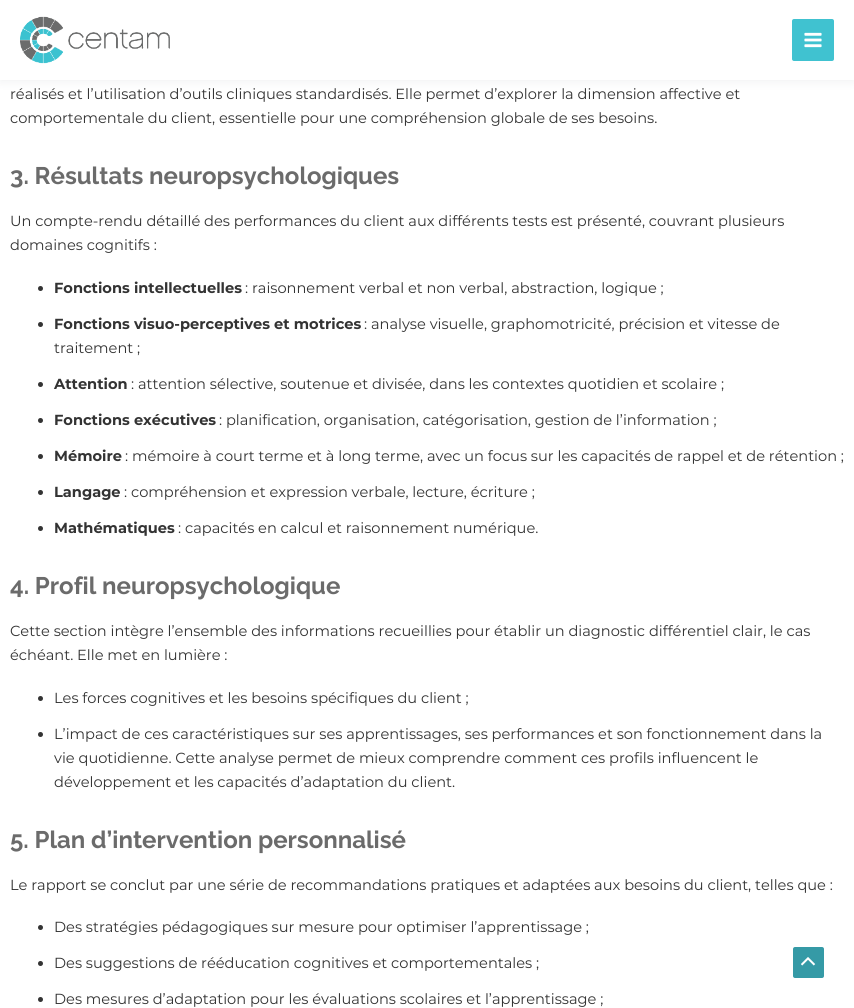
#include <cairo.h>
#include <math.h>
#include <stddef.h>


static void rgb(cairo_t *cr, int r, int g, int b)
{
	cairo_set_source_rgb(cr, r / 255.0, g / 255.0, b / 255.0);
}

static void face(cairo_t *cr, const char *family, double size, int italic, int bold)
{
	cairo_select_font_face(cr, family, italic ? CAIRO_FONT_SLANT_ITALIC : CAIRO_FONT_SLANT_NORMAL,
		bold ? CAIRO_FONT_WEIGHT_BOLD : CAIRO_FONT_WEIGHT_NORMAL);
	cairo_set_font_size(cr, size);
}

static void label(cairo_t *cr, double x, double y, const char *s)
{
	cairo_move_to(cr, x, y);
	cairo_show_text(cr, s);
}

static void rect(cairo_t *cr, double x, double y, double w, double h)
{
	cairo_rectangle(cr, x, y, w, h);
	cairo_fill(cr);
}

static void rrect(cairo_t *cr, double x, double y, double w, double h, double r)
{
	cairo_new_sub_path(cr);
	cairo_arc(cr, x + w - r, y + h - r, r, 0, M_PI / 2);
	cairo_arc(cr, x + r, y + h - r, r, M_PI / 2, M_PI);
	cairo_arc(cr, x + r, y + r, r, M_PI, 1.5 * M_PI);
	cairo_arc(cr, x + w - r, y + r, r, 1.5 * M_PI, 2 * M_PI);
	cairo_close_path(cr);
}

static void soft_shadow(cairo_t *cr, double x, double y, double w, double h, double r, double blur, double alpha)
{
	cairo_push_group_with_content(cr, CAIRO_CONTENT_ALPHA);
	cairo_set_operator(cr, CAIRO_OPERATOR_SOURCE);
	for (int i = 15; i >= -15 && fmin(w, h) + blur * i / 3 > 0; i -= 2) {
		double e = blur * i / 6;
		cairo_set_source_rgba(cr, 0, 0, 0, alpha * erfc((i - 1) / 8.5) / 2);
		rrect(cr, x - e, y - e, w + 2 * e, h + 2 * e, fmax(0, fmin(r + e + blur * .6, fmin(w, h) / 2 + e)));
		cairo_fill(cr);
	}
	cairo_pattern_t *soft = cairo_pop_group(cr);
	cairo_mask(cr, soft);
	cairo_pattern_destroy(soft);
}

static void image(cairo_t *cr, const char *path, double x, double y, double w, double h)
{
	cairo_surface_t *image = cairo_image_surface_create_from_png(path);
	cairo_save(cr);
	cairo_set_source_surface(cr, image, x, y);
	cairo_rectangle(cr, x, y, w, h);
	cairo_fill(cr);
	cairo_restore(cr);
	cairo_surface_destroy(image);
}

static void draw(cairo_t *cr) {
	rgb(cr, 255, 255, 255);
	cairo_paint(cr);
	rgb(cr, 36, 50, 66);
	soft_shadow(cr, 0, 2, 854, 80, 0, 5, 0.07);
	rgb(cr, 255, 255, 255);
	rect(cr, 0, 0, 854, 80);
	image(cr, "image0.png", 20, 16, 150, 48);
	rgb(cr, 64, 194, 208);
	rrect(cr, 792, 19, 42, 42, 2);
	cairo_fill(cr);
	image(cr, "image1.png", 804, 32, 18, 16);
	face(cr, "Montserrat", 14.6, 0, 0);
	rgb(cr, 51, 51, 51);
	label(cr, 10, 99, "réalisés et l’utilisation d’outils cliniques standardisés. Elle permet d’explorer la dimension affective et");
	label(cr, 10, 123, "comportementale du client, essentielle pour une compréhension globale de ses besoins.");
	face(cr, "Raleway", 24, 0, 1);
	rgb(cr, 107, 107, 107);
	label(cr, 10, 184, "3. Résultats neuropsychologiques");
	face(cr, "Montserrat", 14.6, 0, 0);
	rgb(cr, 51, 51, 51);
	label(cr, 10, 226, "Un compte-rendu détaillé des performances du client aux différents tests est présenté, couvrant plusieurs");
	label(cr, 10, 250, "domaines cognitifs :");
	cairo_new_path(cr);
	cairo_arc(cr, 40.5, 288.5, 2.5, 0, 2 * M_PI);
	cairo_fill(cr);
	face(cr, "Montserrat", 14.6, 0, 1);
	label(cr, 54, 293, "Fonctions intellectuelles");
	face(cr, "Montserrat", 14.6, 0, 0);
	label(cr, 245, 293, ": raisonnement verbal et non verbal, abstraction, logique ;");
	cairo_new_path(cr);
	cairo_arc(cr, 40.5, 324.5, 2.5, 0, 2 * M_PI);
	cairo_fill(cr);
	face(cr, "Montserrat", 14.6, 0, 1);
	label(cr, 54, 329, "Fonctions visuo-perceptives et motrices");
	face(cr, "Montserrat", 14.6, 0, 0);
	label(cr, 364, 329, ": analyse visuelle, graphomotricité, précision et vitesse de");
	label(cr, 54, 353, "traitement ;");
	cairo_new_path(cr);
	cairo_arc(cr, 40.5, 384.5, 2.5, 0, 2 * M_PI);
	cairo_fill(cr);
	face(cr, "Montserrat", 14.6, 0, 1);
	label(cr, 54, 389, "Attention");
	face(cr, "Montserrat", 14.6, 0, 0);
	label(cr, 131, 389, ": attention sélective, soutenue et divisée, dans les contextes quotidien et scolaire ;");
	cairo_new_path(cr);
	cairo_arc(cr, 40.5, 420.5, 2.5, 0, 2 * M_PI);
	cairo_fill(cr);
	face(cr, "Montserrat", 14.6, 0, 1);
	label(cr, 54, 425, "Fonctions exécutives");
	face(cr, "Montserrat", 14.6, 0, 0);
	label(cr, 219, 425, ": planification, organisation, catégorisation, gestion de l’information ;");
	cairo_new_path(cr);
	cairo_arc(cr, 40.5, 456.5, 2.5, 0, 2 * M_PI);
	cairo_fill(cr);
	face(cr, "Montserrat", 14.6, 0, 1);
	label(cr, 54, 461, "Mémoire");
	face(cr, "Montserrat", 14.6, 0, 0);
	label(cr, 125, 461, ": mémoire à court terme et à long terme, avec un focus sur les capacités de rappel et de rétention ;");
	cairo_new_path(cr);
	cairo_arc(cr, 40.5, 492.5, 2.5, 0, 2 * M_PI);
	cairo_fill(cr);
	face(cr, "Montserrat", 14.6, 0, 1);
	label(cr, 54, 497, "Langage");
	face(cr, "Montserrat", 14.6, 0, 0);
	label(cr, 124, 497, ": compréhension et expression verbale, lecture, écriture ;");
	cairo_new_path(cr);
	cairo_arc(cr, 40.5, 528.5, 2.5, 0, 2 * M_PI);
	cairo_fill(cr);
	face(cr, "Montserrat", 14.6, 0, 1);
	label(cr, 54, 533, "Mathématiques");
	face(cr, "Montserrat", 14.6, 0, 0);
	label(cr, 178, 533, ": capacités en calcul et raisonnement numérique.");
	face(cr, "Raleway", 24, 0, 1);
	rgb(cr, 107, 107, 107);
	label(cr, 10, 594, "4. Profil neuropsychologique");
	face(cr, "Montserrat", 14.6, 0, 0);
	rgb(cr, 51, 51, 51);
	label(cr, 10, 636, "Cette section intègre l’ensemble des informations recueillies pour établir un diagnostic différentiel clair, le cas");
	label(cr, 10, 660, "échéant. Elle met en lumière :");
	cairo_new_path(cr);
	cairo_arc(cr, 40.5, 698.5, 2.5, 0, 2 * M_PI);
	cairo_fill(cr);
	label(cr, 54, 703, "Les forces cognitives et les besoins spécifiques du client ;");
	cairo_new_path(cr);
	cairo_arc(cr, 40.5, 734.5, 2.5, 0, 2 * M_PI);
	cairo_fill(cr);
	label(cr, 54, 739, "L’impact de ces caractéristiques sur ses apprentissages, ses performances et son fonctionnement dans la");
	label(cr, 54, 763, "vie quotidienne. Cette analyse permet de mieux comprendre comment ces profils influencent le");
	label(cr, 54, 787, "développement et les capacités d’adaptation du client.");
	face(cr, "Raleway", 24, 0, 1);
	rgb(cr, 107, 107, 107);
	label(cr, 10, 848, "5. Plan d’intervention personnalisé");
	face(cr, "Montserrat", 14.6, 0, 0);
	rgb(cr, 51, 51, 51);
	label(cr, 10, 890, "Le rapport se conclut par une série de recommandations pratiques et adaptées aux besoins du client, telles que :");
	cairo_new_path(cr);
	cairo_arc(cr, 40.5, 927.5, 2.5, 0, 2 * M_PI);
	cairo_fill(cr);
	label(cr, 54, 932, "Des stratégies pédagogiques sur mesure pour optimiser l’apprentissage ;");
	cairo_new_path(cr);
	cairo_arc(cr, 40.5, 963.5, 2.5, 0, 2 * M_PI);
	cairo_fill(cr);
	label(cr, 54, 968, "Des suggestions de rééducation cognitives et comportementales ;");
	cairo_new_path(cr);
	cairo_arc(cr, 40.5, 999.5, 2.5, 0, 2 * M_PI);
	cairo_fill(cr);
	label(cr, 54, 1004, "Des mesures d’adaptation pour les évaluations scolaires et l’apprentissage ;");
	rgb(cr, 53, 154, 166);
	rrect(cr, 793, 947, 31, 31, 2);
	cairo_fill(cr);
	image(cr, "image2.png", 801, 957, 15, 9);
}

int main(void) {
	cairo_surface_t *surface = cairo_image_surface_create(CAIRO_FORMAT_RGB24, 854, 1008);
	cairo_t *cr = cairo_create(surface);
	cairo_font_options_t *options = cairo_font_options_create();
	cairo_font_options_set_hint_metrics(options, CAIRO_HINT_METRICS_OFF);
	cairo_font_options_set_hint_style(options, CAIRO_HINT_STYLE_NONE);
	cairo_set_font_options(cr, options);
	cairo_set_miter_limit(cr, 4);
	draw(cr);
	cairo_surface_write_to_png(surface, "render.png");
	cairo_font_options_destroy(options);
	cairo_destroy(cr);
	cairo_surface_destroy(surface);
	return 0;
}
